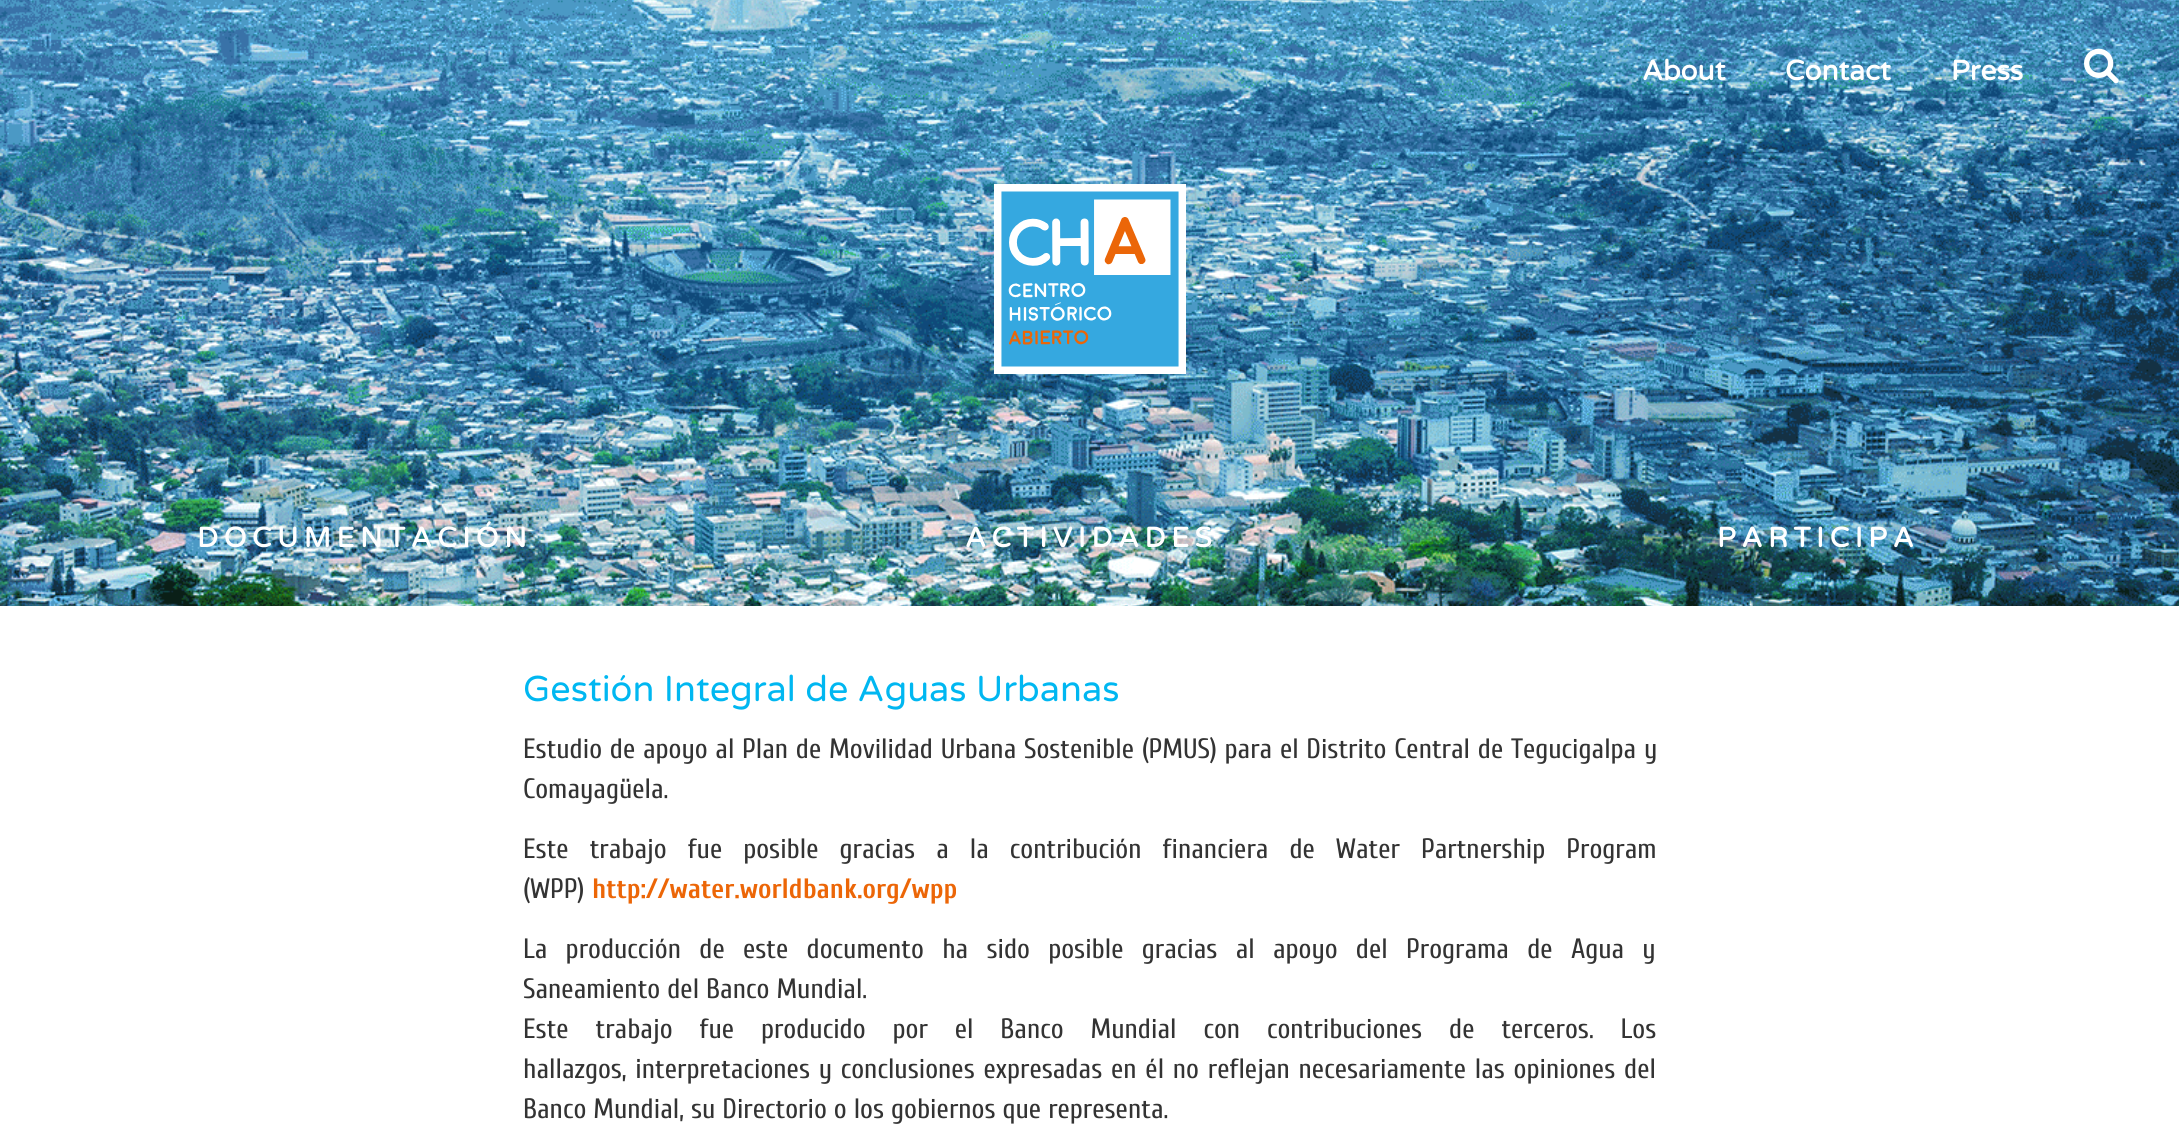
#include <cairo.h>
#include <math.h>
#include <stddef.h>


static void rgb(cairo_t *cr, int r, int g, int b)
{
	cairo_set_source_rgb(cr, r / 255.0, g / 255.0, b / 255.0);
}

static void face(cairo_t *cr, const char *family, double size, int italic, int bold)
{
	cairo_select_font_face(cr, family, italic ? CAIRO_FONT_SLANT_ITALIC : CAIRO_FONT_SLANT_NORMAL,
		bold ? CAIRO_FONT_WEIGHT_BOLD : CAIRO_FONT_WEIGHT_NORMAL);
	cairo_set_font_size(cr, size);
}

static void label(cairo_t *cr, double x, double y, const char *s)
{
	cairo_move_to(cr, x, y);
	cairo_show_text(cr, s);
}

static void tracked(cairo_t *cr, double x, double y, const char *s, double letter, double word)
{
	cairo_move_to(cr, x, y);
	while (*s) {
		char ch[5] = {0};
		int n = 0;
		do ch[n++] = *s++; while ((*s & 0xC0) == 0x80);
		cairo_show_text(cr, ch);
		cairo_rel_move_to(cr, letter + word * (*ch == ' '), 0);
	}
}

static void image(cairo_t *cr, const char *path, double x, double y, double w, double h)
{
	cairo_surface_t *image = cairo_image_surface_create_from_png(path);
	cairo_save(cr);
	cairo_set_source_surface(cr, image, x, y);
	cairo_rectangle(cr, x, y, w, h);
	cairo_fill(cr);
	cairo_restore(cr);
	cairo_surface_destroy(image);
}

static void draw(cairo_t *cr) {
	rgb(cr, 255, 255, 255);
	cairo_paint(cr);
	image(cr, "image0.png", 0, 0, 2179, 606);
	face(cr, "Varela Round", 28, 0, 1);
	rgb(cr, 255, 255, 255);
	label(cr, 1642, 80, "About");
	label(cr, 1785, 80, "Contact");
	label(cr, 1951, 80, "Press");
	image(cr, "image1.png", 2084, 48, 35, 36);
	image(cr, "image2.png", 994, 184, 192, 190);
	tracked(cr, 197, 547, "DOCUMENTACIÓN", 5.6, 0);
	tracked(cr, 965, 547, "ACTIVIDADES", 5.6, 0);
	tracked(cr, 1717, 547, "PARTICIPA", 5.6, 0);
	face(cr, "Varela Round", 36, 0, 0);
	rgb(cr, 0, 183, 241);
	label(cr, 523, 701, "Gestión Integral de Aguas Urbanas");
	face(cr, "Cuprum", 28, 0, 0);
	rgb(cr, 51, 51, 51);
	tracked(cr, 523, 758, "Estudio de apoyo al Plan de Movilidad Urbana Sostenible (PMUS) para el Distrito Central de Tegucigalpa y", 0, 0.7);
	label(cr, 523, 798, "Comayagüela.");
	tracked(cr, 523, 858, "Este trabajo fue posible gracias a la contribución financiera de Water Partnership Program", 0, 14);
	label(cr, 523, 898, "(WPP)");
	face(cr, "Cuprum", 28, 0, 1);
	rgb(cr, 236, 102, 7);
	label(cr, 592, 898, "http://water.worldbank.org/wpp");
	face(cr, "Cuprum", 28, 0, 0);
	rgb(cr, 51, 51, 51);
	tracked(cr, 523, 958, "La producción de este documento ha sido posible gracias al apoyo del Programa de Agua y", 0, 11.25);
	label(cr, 523, 998, "Saneamiento del Banco Mundial.");
	tracked(cr, 523, 1038, "Este trabajo fue producido por el Banco Mundial con contribuciones de terceros. Los", 0, 19.9);
	tracked(cr, 523, 1078, "hallazgos, interpretaciones y conclusiones expresadas en él no reflejan necesariamente las opiniones del", 0, 1.75);
	label(cr, 523, 1118, "Banco Mundial, su Directorio o los gobiernos que representa.");
}

int main(void) {
	cairo_surface_t *surface = cairo_image_surface_create(CAIRO_FORMAT_RGB24, 2179, 1124);
	cairo_t *cr = cairo_create(surface);
	cairo_font_options_t *options = cairo_font_options_create();
	cairo_font_options_set_hint_metrics(options, CAIRO_HINT_METRICS_OFF);
	cairo_font_options_set_hint_style(options, CAIRO_HINT_STYLE_NONE);
	cairo_set_font_options(cr, options);
	cairo_set_miter_limit(cr, 4);
	draw(cr);
	cairo_surface_write_to_png(surface, "render.png");
	cairo_font_options_destroy(options);
	cairo_destroy(cr);
	cairo_surface_destroy(surface);
	return 0;
}
